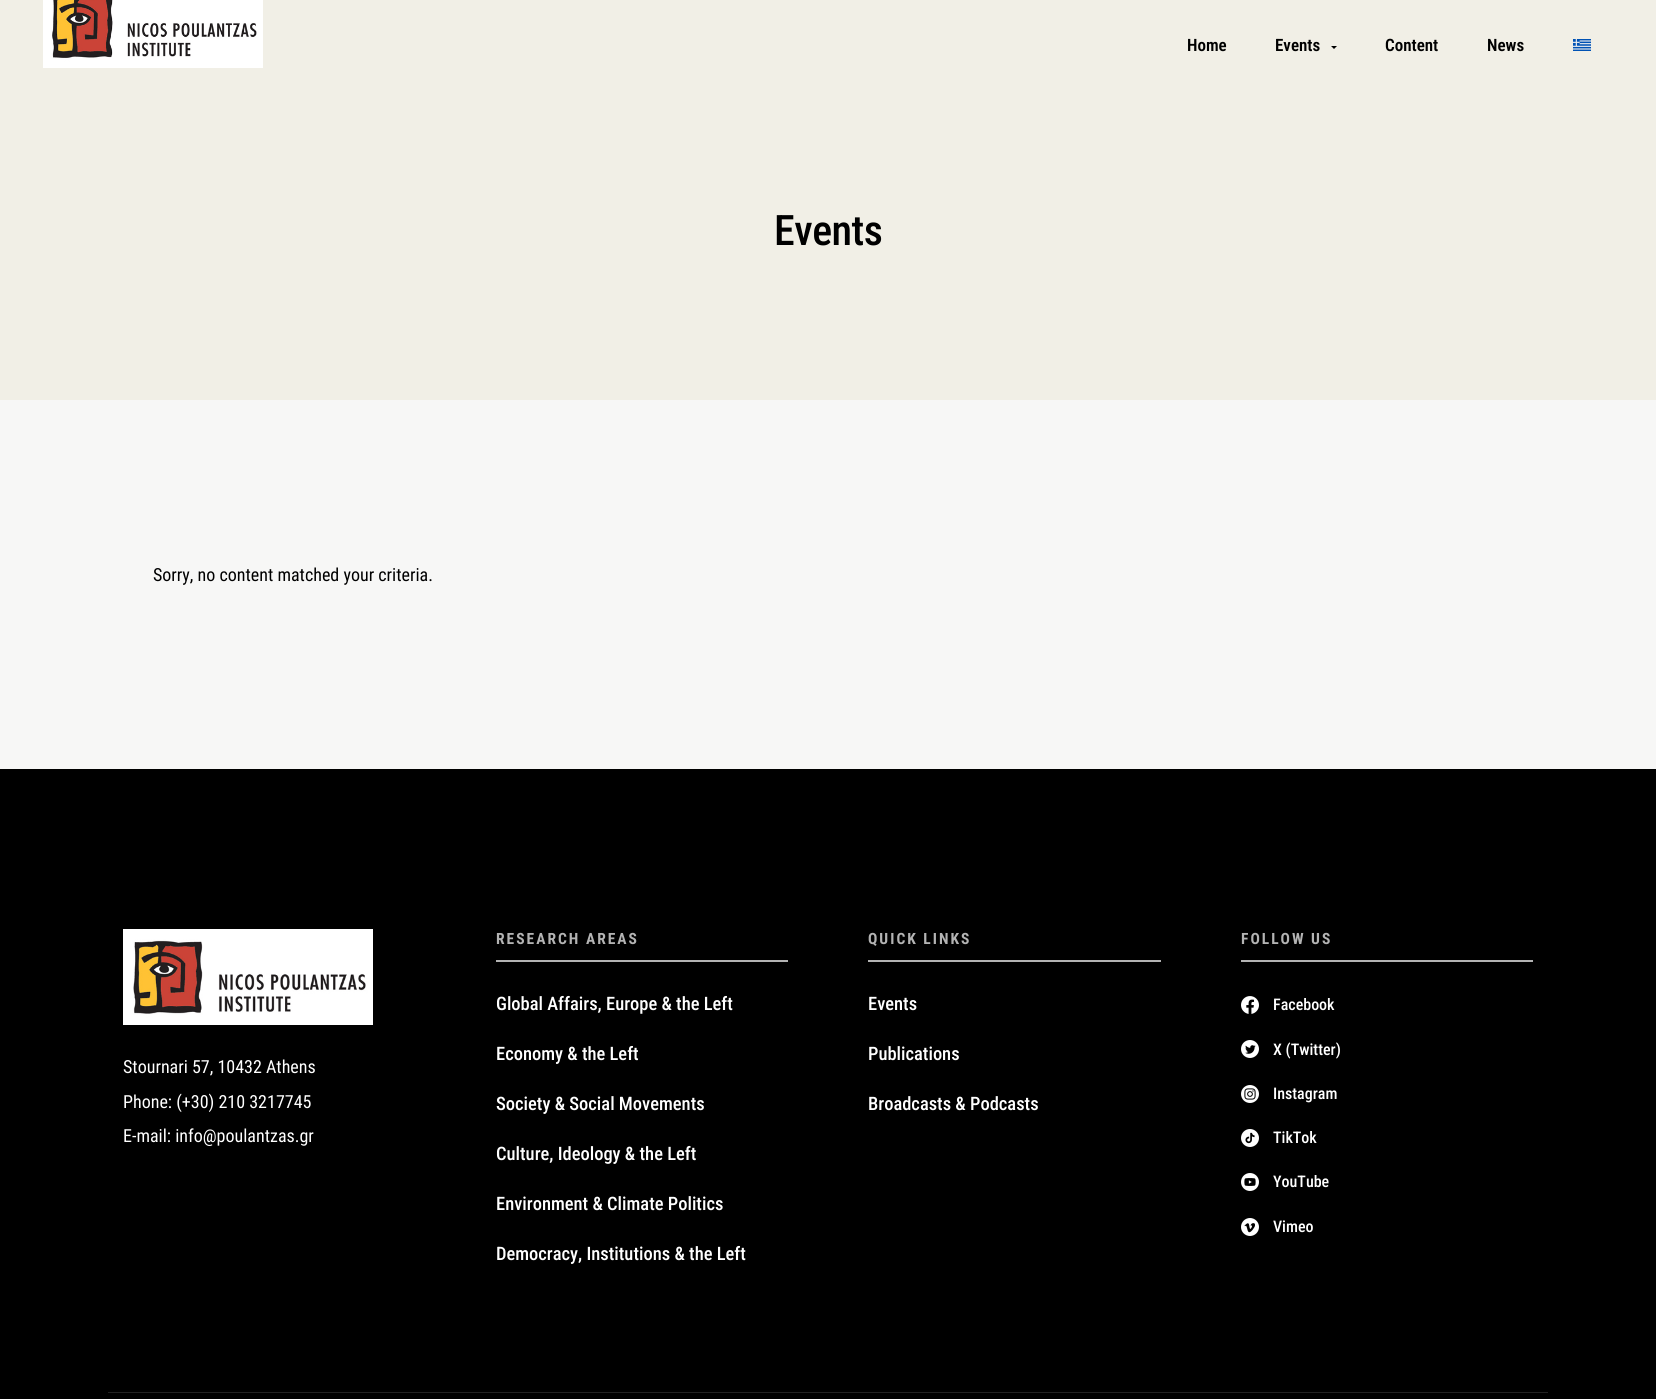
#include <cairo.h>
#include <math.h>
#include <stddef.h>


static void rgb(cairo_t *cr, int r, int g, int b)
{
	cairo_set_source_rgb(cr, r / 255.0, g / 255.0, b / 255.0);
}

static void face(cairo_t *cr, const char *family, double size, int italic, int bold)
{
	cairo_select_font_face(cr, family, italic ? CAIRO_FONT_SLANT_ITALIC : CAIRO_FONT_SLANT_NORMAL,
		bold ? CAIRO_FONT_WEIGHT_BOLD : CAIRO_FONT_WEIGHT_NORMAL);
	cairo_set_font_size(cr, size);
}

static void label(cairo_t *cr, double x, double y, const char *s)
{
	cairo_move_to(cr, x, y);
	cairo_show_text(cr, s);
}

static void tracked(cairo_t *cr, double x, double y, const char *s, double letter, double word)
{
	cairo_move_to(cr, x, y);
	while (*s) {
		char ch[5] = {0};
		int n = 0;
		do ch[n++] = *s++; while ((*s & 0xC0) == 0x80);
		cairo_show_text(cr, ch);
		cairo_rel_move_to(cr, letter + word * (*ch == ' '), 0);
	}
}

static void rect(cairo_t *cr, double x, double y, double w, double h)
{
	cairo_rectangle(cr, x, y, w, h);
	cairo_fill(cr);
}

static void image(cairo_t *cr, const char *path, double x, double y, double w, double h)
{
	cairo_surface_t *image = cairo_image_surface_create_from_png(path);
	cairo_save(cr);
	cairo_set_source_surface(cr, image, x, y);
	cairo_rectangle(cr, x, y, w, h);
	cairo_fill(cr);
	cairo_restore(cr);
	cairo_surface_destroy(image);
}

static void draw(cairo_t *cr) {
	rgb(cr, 247, 247, 246);
	cairo_paint(cr);
	rgb(cr, 241, 239, 230);
	rect(cr, 0, 0, 1656, 400);
	image(cr, "image0.png", 43, 0, 220, 68);
	face(cr, "Roboto Condensed SemiBold", 17, 0, 0);
	rgb(cr, 0, 0, 0);
	label(cr, 1187, 51, "Home");
	label(cr, 1275, 51, "Events");
	cairo_new_path(cr);
	cairo_move_to(cr, 1331, 46);
	cairo_line_to(cr, 1337, 46);
	cairo_line_to(cr, 1334, 49);
	cairo_close_path(cr);
	cairo_fill(cr);
	label(cr, 1385, 51, "Content");
	label(cr, 1487, 51, "News");
	image(cr, "image1.png", 1573, 39, 18, 12);
	face(cr, "Roboto Condensed Medium", 42, 0, 0);
	tracked(cr, 774, 245, "Events", -0.5, 0);
	face(cr, "Roboto Condensed", 18, 0, 0);
	label(cr, 153, 581, "Sorry, no content matched your criteria.");
	rect(cr, 0, 769, 1656, 630);
	image(cr, "image2.png", 123, 929, 250, 96);
	rgb(cr, 255, 255, 255);
	label(cr, 123, 1073, "Stournari 57, 10432 Athens");
	label(cr, 123, 1108, "Phone: (+30) 210 3217745");
	label(cr, 123, 1142, "E-mail: info@poulantzas.gr");
	rgb(cr, 179, 179, 179);
	rect(cr, 496, 960, 292, 2);
	face(cr, "Roboto Condensed", 15.5, 0, 1);
	tracked(cr, 496, 944, "RESEARCH AREAS", 2, 0);
	face(cr, "Roboto Condensed Medium", 18.5, 0, 0);
	rgb(cr, 255, 255, 255);
	label(cr, 496, 1010, "Global Affairs, Europe & the Left");
	label(cr, 496, 1060, "Economy & the Left");
	label(cr, 496, 1110, "Society & Social Movements");
	label(cr, 496, 1160, "Culture, Ideology & the Left");
	label(cr, 496, 1210, "Environment & Climate Politics");
	label(cr, 496, 1260, "Democracy, Institutions & the Left");
	rgb(cr, 179, 179, 179);
	rect(cr, 868, 960, 293, 2);
	face(cr, "Roboto Condensed", 15.5, 0, 1);
	tracked(cr, 868, 944, "QUICK LINKS", 2, 0);
	face(cr, "Roboto Condensed Medium", 18.5, 0, 0);
	rgb(cr, 255, 255, 255);
	label(cr, 868, 1010, "Events");
	label(cr, 868, 1060, "Publications");
	label(cr, 868, 1110, "Broadcasts & Podcasts");
	rgb(cr, 179, 179, 179);
	rect(cr, 1241, 960, 292, 2);
	face(cr, "Roboto Condensed", 15.5, 0, 1);
	tracked(cr, 1241, 944, "FOLLOW US", 2, 0);
	image(cr, "image3.png", 1241, 996, 18, 18);
	face(cr, "Roboto Condensed Medium", 16, 0, 0);
	rgb(cr, 255, 255, 255);
	label(cr, 1273, 1010, "Facebook");
	image(cr, "image4.png", 1241, 1040, 18, 18);
	label(cr, 1273, 1055, "X (Twitter)");
	image(cr, "image5.png", 1241, 1085, 18, 18);
	label(cr, 1273, 1099, "Instagram");
	image(cr, "image6.png", 1241, 1129, 18, 18);
	label(cr, 1273, 1143, "TikTok");
	image(cr, "image7.png", 1241, 1173, 18, 18);
	label(cr, 1273, 1187, "YouTube");
	image(cr, "image8.png", 1241, 1218, 18, 18);
	label(cr, 1273, 1232, "Vimeo");
	rgb(cr, 34, 34, 34);
	rect(cr, 108, 1392, 1440, 1);
}

int main(void) {
	cairo_surface_t *surface = cairo_image_surface_create(CAIRO_FORMAT_RGB24, 1656, 1399);
	cairo_t *cr = cairo_create(surface);
	cairo_font_options_t *options = cairo_font_options_create();
	cairo_font_options_set_hint_metrics(options, CAIRO_HINT_METRICS_OFF);
	cairo_font_options_set_hint_style(options, CAIRO_HINT_STYLE_NONE);
	cairo_set_font_options(cr, options);
	cairo_set_miter_limit(cr, 4);
	draw(cr);
	cairo_surface_write_to_png(surface, "render.png");
	cairo_font_options_destroy(options);
	cairo_destroy(cr);
	cairo_surface_destroy(surface);
	return 0;
}
